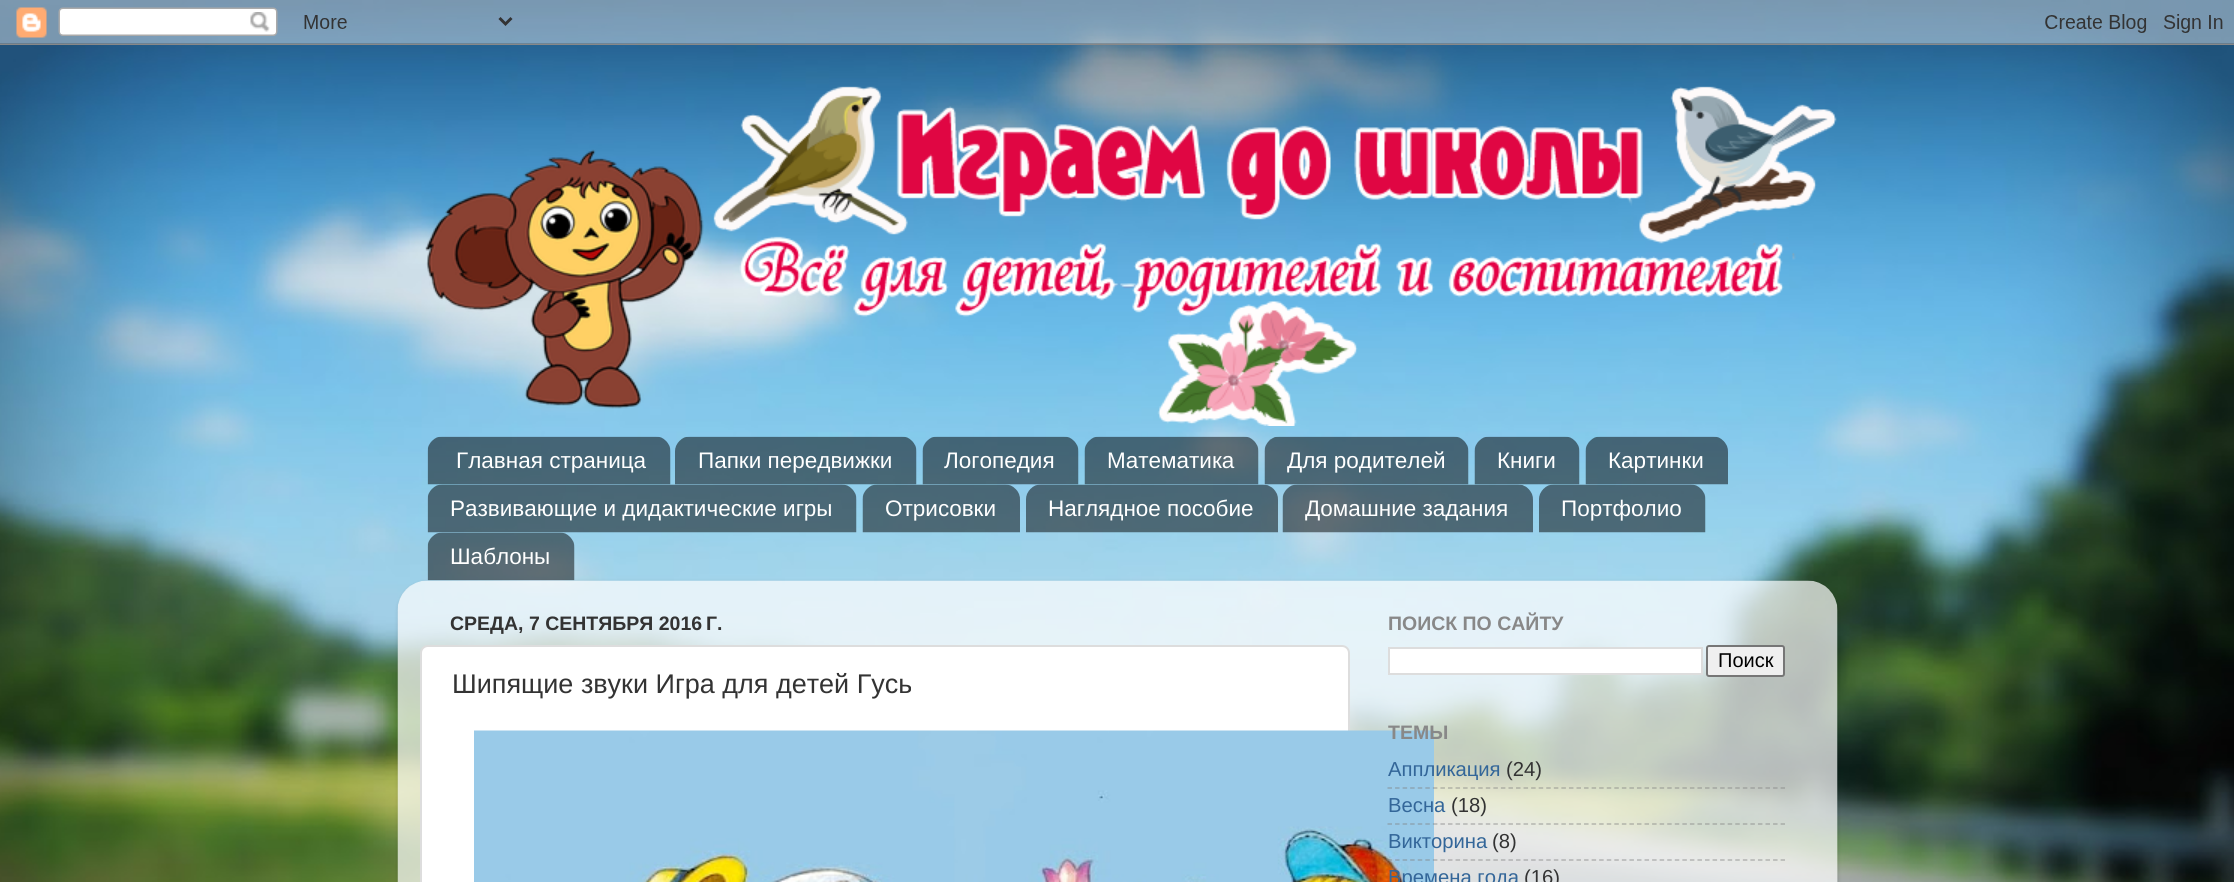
#include <cairo.h>
#include <math.h>
#include <stddef.h>


static void rgb(cairo_t *cr, int r, int g, int b)
{
	cairo_set_source_rgb(cr, r / 255.0, g / 255.0, b / 255.0);
}

static void face(cairo_t *cr, const char *family, double size, int italic, int bold)
{
	cairo_select_font_face(cr, family, italic ? CAIRO_FONT_SLANT_ITALIC : CAIRO_FONT_SLANT_NORMAL,
		bold ? CAIRO_FONT_WEIGHT_BOLD : CAIRO_FONT_WEIGHT_NORMAL);
	cairo_set_font_size(cr, size);
}

static void label(cairo_t *cr, double x, double y, const char *s)
{
	cairo_move_to(cr, x, y);
	cairo_show_text(cr, s);
}

static void rrect(cairo_t *cr, double x, double y, double w, double h, double r)
{
	cairo_new_sub_path(cr);
	cairo_arc(cr, x + w - r, y + h - r, r, 0, M_PI / 2);
	cairo_arc(cr, x + r, y + h - r, r, M_PI / 2, M_PI);
	cairo_arc(cr, x + r, y + r, r, M_PI, 1.5 * M_PI);
	cairo_arc(cr, x + w - r, y + r, r, 1.5 * M_PI, 2 * M_PI);
	cairo_close_path(cr);
}

static void soft_shadow(cairo_t *cr, double x, double y, double w, double h, double r, double blur, double alpha)
{
	cairo_push_group_with_content(cr, CAIRO_CONTENT_ALPHA);
	cairo_set_operator(cr, CAIRO_OPERATOR_SOURCE);
	for (int i = 15; i >= -15 && fmin(w, h) + blur * i / 3 > 0; i -= 2) {
		double e = blur * i / 6;
		cairo_set_source_rgba(cr, 0, 0, 0, alpha * erfc((i - 1) / 8.5) / 2);
		rrect(cr, x - e, y - e, w + 2 * e, h + 2 * e, fmax(0, fmin(r + e + blur * .6, fmin(w, h) / 2 + e)));
		cairo_fill(cr);
	}
	cairo_pattern_t *soft = cairo_pop_group(cr);
	cairo_mask(cr, soft);
	cairo_pattern_destroy(soft);
}

static void image(cairo_t *cr, const char *path, double x, double y, double w, double h)
{
	cairo_surface_t *image = cairo_image_surface_create_from_png(path);
	cairo_save(cr);
	cairo_set_source_surface(cr, image, x, y);
	cairo_rectangle(cr, x, y, w, h);
	cairo_fill(cr);
	cairo_restore(cr);
	cairo_surface_destroy(image);
}

static void draw(cairo_t *cr) {
	rgb(cr, 255, 255, 255);
	cairo_paint(cr);
	image(cr, "image0.png", 0, 0, 2234, 882);
	image(cr, "image1.png", 0, 0, 2234, 45);
	image(cr, "image2.png", 425, 86, 1412, 340);
	image(cr, "image3.png", 427, 436, 244, 49);
	face(cr, "Liberation Sans", 22.5, 0, 0);
	rgb(cr, 255, 255, 255);
	label(cr, 456, 468, "Главная страница");
	image(cr, "image4.png", 675, 436, 242, 49);
	label(cr, 698, 468, "Папки передвижки");
	image(cr, "image5.png", 922, 436, 157, 49);
	label(cr, 944, 468, "Логопедия");
	image(cr, "image6.png", 1084, 436, 175, 49);
	label(cr, 1107, 468, "Математика");
	image(cr, "image7.png", 1264, 436, 205, 49);
	label(cr, 1287, 468, "Для родителей");
	image(cr, "image8.png", 1474, 436, 106, 49);
	label(cr, 1497, 468, "Книги");
	image(cr, "image9.png", 1585, 436, 143, 49);
	label(cr, 1608, 468, "Картинки");
	image(cr, "image10.png", 427, 484, 430, 49);
	label(cr, 450, 516, "Развивающие и дидактические игры");
	image(cr, "image11.png", 862, 484, 158, 49);
	label(cr, 885, 516, "Отрисовки");
	image(cr, "image12.png", 1026, 484, 252, 49);
	label(cr, 1048, 516, "Наглядное пособие");
	image(cr, "image13.png", 1282, 484, 251, 49);
	label(cr, 1305, 516, "Домашние задания");
	image(cr, "image14.png", 1539, 484, 167, 49);
	label(cr, 1561, 516, "Портфолио");
	image(cr, "image15.png", 427, 532, 148, 49);
	label(cr, 450, 564, "Шаблоны");
	cairo_save(cr);
	cairo_set_fill_rule(cr, CAIRO_FILL_RULE_EVEN_ODD);
	cairo_new_path(cr);
	cairo_move_to(cr, 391, 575);
	cairo_line_to(cr, 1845, 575);
	cairo_line_to(cr, 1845, 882);
	cairo_line_to(cr, 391, 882);
	cairo_close_path(cr);
	cairo_move_to(cr, 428, 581);
	cairo_line_to(cr, 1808, 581);
	cairo_curve_to(cr, 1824.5, 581, 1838, 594.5, 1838, 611);
	cairo_line_to(cr, 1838, 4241);
	cairo_line_to(cr, 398, 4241);
	cairo_line_to(cr, 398, 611);
	cairo_curve_to(cr, 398, 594.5, 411.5, 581, 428, 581);
	cairo_close_path(cr);
	cairo_clip(cr);
	rgb(cr, 0, 0, 0);
	soft_shadow(cr, 398, 582, 1440, 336, 30, 2, 0.15);
	cairo_restore(cr);
	image(cr, "image16.png", 397, 580, 1441, 302);
	face(cr, "Liberation Sans", 19.5, 0, 1);
	rgb(cr, 51, 51, 51);
	label(cr, 450, 630, "СРЕДА, 7 СЕНТЯБРЯ 2016 Г.");
	rgb(cr, 255, 255, 255);
	rrect(cr, 421, 646, 928, 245, 7);
	cairo_fill_preserve(cr);
	rgb(cr, 221, 221, 221);
	cairo_stroke(cr);
	face(cr, "Liberation Sans", 27, 0, 0);
	rgb(cr, 51, 51, 51);
	label(cr, 452, 693, "Шипящие звуки Игра для детей Гусь");
	image(cr, "image17.png", 474, 730, 960, 152);
	face(cr, "Liberation Sans", 19.5, 0, 1);
	rgb(cr, 136, 136, 136);
	label(cr, 1388, 630, "ПОИСК ПО САЙТУ");
	rgb(cr, 255, 255, 255);
	cairo_rectangle(cr, 1389, 648, 313, 26);
	cairo_fill_preserve(cr);
	rgb(cr, 221, 221, 221);
	cairo_stroke(cr);
	rgb(cr, 239, 239, 239);
	rrect(cr, 1707, 646, 77, 30, 2);
	cairo_fill_preserve(cr);
	rgb(cr, 118, 118, 118);
	cairo_stroke(cr);
	face(cr, "Liberation Sans", 20, 0, 0);
	rgb(cr, 0, 0, 0);
	label(cr, 1718, 667, "Поиск");
	face(cr, "Liberation Sans", 19.5, 0, 1);
	rgb(cr, 136, 136, 136);
	label(cr, 1388, 739, "ТЕМЫ");
	face(cr, "Liberation Sans", 20.25, 0, 0);
	rgb(cr, 51, 102, 153);
	label(cr, 1388, 776, "Аппликация");
	rgb(cr, 51, 51, 51);
	label(cr, 1506, 776, "(24)");
	cairo_new_path(cr);
	cairo_move_to(cr, 1387.5, 788);
	cairo_line_to(cr, 1785, 788);
	cairo_set_source_rgba(cr, 0.502, 0.502, 0.502, 0.5);
	cairo_set_line_width(cr, 1.5);
	cairo_set_dash(cr, (double[]){4.5, 3.06}, 2, 0);
	cairo_stroke(cr);
	rgb(cr, 51, 102, 153);
	label(cr, 1388, 812, "Весна");
	rgb(cr, 51, 51, 51);
	label(cr, 1451, 812, "(18)");
	cairo_new_path(cr);
	cairo_move_to(cr, 1387.5, 824);
	cairo_line_to(cr, 1785, 824);
	cairo_set_source_rgba(cr, 0.502, 0.502, 0.502, 0.5);
	cairo_stroke(cr);
	rgb(cr, 51, 102, 153);
	label(cr, 1388, 848, "Викторина");
	rgb(cr, 51, 51, 51);
	label(cr, 1492, 848, "(8)");
	cairo_new_path(cr);
	cairo_move_to(cr, 1387.5, 860);
	cairo_line_to(cr, 1785, 860);
	cairo_set_source_rgba(cr, 0.502, 0.502, 0.502, 0.5);
	cairo_stroke(cr);
	rgb(cr, 51, 102, 153);
	label(cr, 1388, 884, "Времена года");
	rgb(cr, 51, 51, 51);
	label(cr, 1524, 884, "(16)");
}

int main(void) {
	cairo_surface_t *surface = cairo_image_surface_create(CAIRO_FORMAT_RGB24, 2234, 882);
	cairo_t *cr = cairo_create(surface);
	cairo_font_options_t *options = cairo_font_options_create();
	cairo_font_options_set_hint_metrics(options, CAIRO_HINT_METRICS_OFF);
	cairo_font_options_set_hint_style(options, CAIRO_HINT_STYLE_NONE);
	cairo_set_font_options(cr, options);
	cairo_set_miter_limit(cr, 4);
	draw(cr);
	cairo_surface_write_to_png(surface, "render.png");
	cairo_font_options_destroy(options);
	cairo_destroy(cr);
	cairo_surface_destroy(surface);
	return 0;
}
